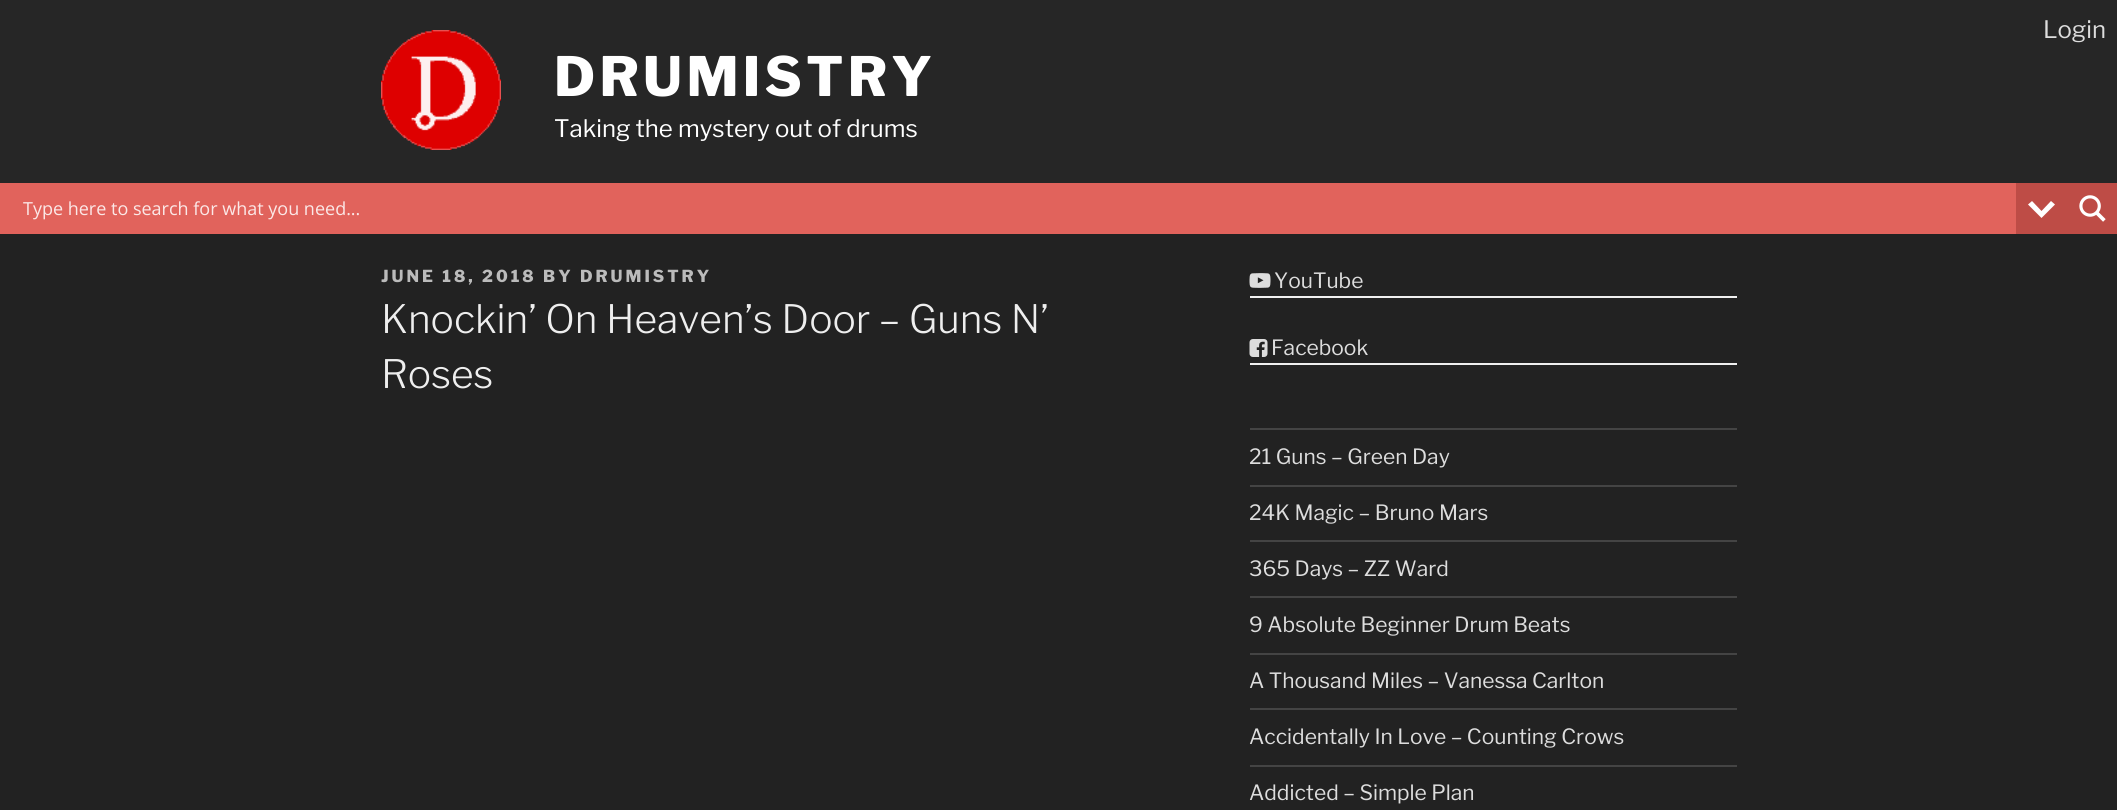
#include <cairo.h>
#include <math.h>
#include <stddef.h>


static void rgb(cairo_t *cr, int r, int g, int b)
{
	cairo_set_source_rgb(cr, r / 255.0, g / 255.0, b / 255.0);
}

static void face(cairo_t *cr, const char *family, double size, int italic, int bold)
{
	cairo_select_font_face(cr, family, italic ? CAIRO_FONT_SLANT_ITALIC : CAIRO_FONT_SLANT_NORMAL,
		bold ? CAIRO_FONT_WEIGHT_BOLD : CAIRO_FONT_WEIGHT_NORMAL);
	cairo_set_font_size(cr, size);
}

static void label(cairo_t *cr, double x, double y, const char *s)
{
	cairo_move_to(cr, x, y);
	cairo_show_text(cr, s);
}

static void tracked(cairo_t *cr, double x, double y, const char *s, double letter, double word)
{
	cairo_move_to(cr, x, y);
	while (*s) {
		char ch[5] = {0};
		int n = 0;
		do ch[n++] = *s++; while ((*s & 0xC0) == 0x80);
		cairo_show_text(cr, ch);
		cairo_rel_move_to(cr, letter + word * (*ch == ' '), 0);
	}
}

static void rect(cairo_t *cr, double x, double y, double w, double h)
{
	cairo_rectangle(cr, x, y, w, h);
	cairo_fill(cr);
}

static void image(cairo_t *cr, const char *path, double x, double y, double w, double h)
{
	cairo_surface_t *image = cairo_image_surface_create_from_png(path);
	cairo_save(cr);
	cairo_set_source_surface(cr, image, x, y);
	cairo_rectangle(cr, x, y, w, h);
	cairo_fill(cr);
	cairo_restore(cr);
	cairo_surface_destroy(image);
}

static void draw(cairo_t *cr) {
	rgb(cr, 34, 34, 34);
	cairo_paint(cr);
	rgb(cr, 38, 38, 38);
	rect(cr, 0, 0, 2117, 183);
	face(cr, "Libre Franklin", 24, 0, 0);
	rgb(cr, 221, 221, 221);
	label(cr, 2043, 38, "Login");
	image(cr, "image0.png", 381, 30, 120, 120);
	face(cr, "Libre Franklin ExtraBold", 54, 0, 0);
	rgb(cr, 255, 255, 255);
	tracked(cr, 554, 96, "DRUMISTRY", 4.25, 0);
	face(cr, "Libre Franklin", 24, 0, 0);
	label(cr, 554, 137, "Taking the mystery out of drums");
	rgb(cr, 225, 99, 92);
	rect(cr, 0, 183, 2016, 51);
	rgb(cr, 190, 76, 70);
	rect(cr, 2016, 183, 101, 51);
	rgb(cr, 255, 255, 255);
	cairo_new_path(cr);
	cairo_move_to(cr, 2051, 201);
	cairo_line_to(cr, 2055, 204.5);
	cairo_line_to(cr, 2041.5, 218);
	cairo_line_to(cr, 2028, 204.5);
	cairo_line_to(cr, 2032, 201);
	cairo_line_to(cr, 2041.5, 211);
	cairo_close_path(cr);
	cairo_fill(cr);
	face(cr, "Open Sans", 18, 0, 0);
	rgb(cr, 251, 232, 231);
	label(cr, 23, 215, "Type here to search for what you need...");
	image(cr, "image1.png", 2079, 195, 27, 27);
	face(cr, "Libre Franklin ExtraBold", 16.5, 0, 0);
	rgb(cr, 187, 187, 187);
	tracked(cr, 381, 282, "JUNE 18, 2018 BY DRUMISTRY", 3, 0);
	face(cr, "Libre Franklin Light", 39, 0, 0);
	rgb(cr, 238, 238, 238);
	label(cr, 381, 333, "Knockin’ On Heaven’s Door – Guns N’");
	label(cr, 381, 388, "Roses");
	rgb(cr, 240, 240, 240);
	rect(cr, 1250, 296, 487, 2);
	image(cr, "image2.png", 1249, 273, 22, 15);
	face(cr, "Libre Franklin", 21, 0, 0);
	rgb(cr, 221, 221, 221);
	label(cr, 1274, 288, "YouTube");
	rgb(cr, 240, 240, 240);
	rect(cr, 1250, 363, 487, 2);
	image(cr, "image3.png", 1249, 339, 19, 18);
	rgb(cr, 221, 221, 221);
	label(cr, 1271, 355, "Facebook");
	rgb(cr, 68, 68, 68);
	rect(cr, 1250, 428, 487, 2);
	rect(cr, 1250, 485, 487, 2);
	rgb(cr, 221, 221, 221);
	label(cr, 1249, 464, "21 Guns – Green Day");
	rgb(cr, 68, 68, 68);
	rect(cr, 1250, 540, 487, 2);
	rgb(cr, 221, 221, 221);
	label(cr, 1249, 520, "24K Magic – Bruno Mars");
	rgb(cr, 68, 68, 68);
	rect(cr, 1250, 596, 487, 2);
	rgb(cr, 221, 221, 221);
	label(cr, 1249, 576, "365 Days – ZZ Ward");
	rgb(cr, 68, 68, 68);
	rect(cr, 1250, 653, 487, 2);
	rgb(cr, 221, 221, 221);
	label(cr, 1249, 632, "9 Absolute Beginner Drum Beats");
	rgb(cr, 68, 68, 68);
	rect(cr, 1250, 708, 487, 2);
	rgb(cr, 221, 221, 221);
	label(cr, 1249, 688, "A Thousand Miles – Vanessa Carlton");
	rgb(cr, 68, 68, 68);
	rect(cr, 1250, 765, 487, 2);
	rgb(cr, 221, 221, 221);
	label(cr, 1249, 744, "Accidentally In Love – Counting Crows");
	label(cr, 1249, 800, "Addicted – Simple Plan");
}

int main(void) {
	cairo_surface_t *surface = cairo_image_surface_create(CAIRO_FORMAT_RGB24, 2117, 810);
	cairo_t *cr = cairo_create(surface);
	cairo_font_options_t *options = cairo_font_options_create();
	cairo_font_options_set_hint_metrics(options, CAIRO_HINT_METRICS_OFF);
	cairo_font_options_set_hint_style(options, CAIRO_HINT_STYLE_NONE);
	cairo_set_font_options(cr, options);
	cairo_set_miter_limit(cr, 4);
	draw(cr);
	cairo_surface_write_to_png(surface, "render.png");
	cairo_font_options_destroy(options);
	cairo_destroy(cr);
	cairo_surface_destroy(surface);
	return 0;
}
